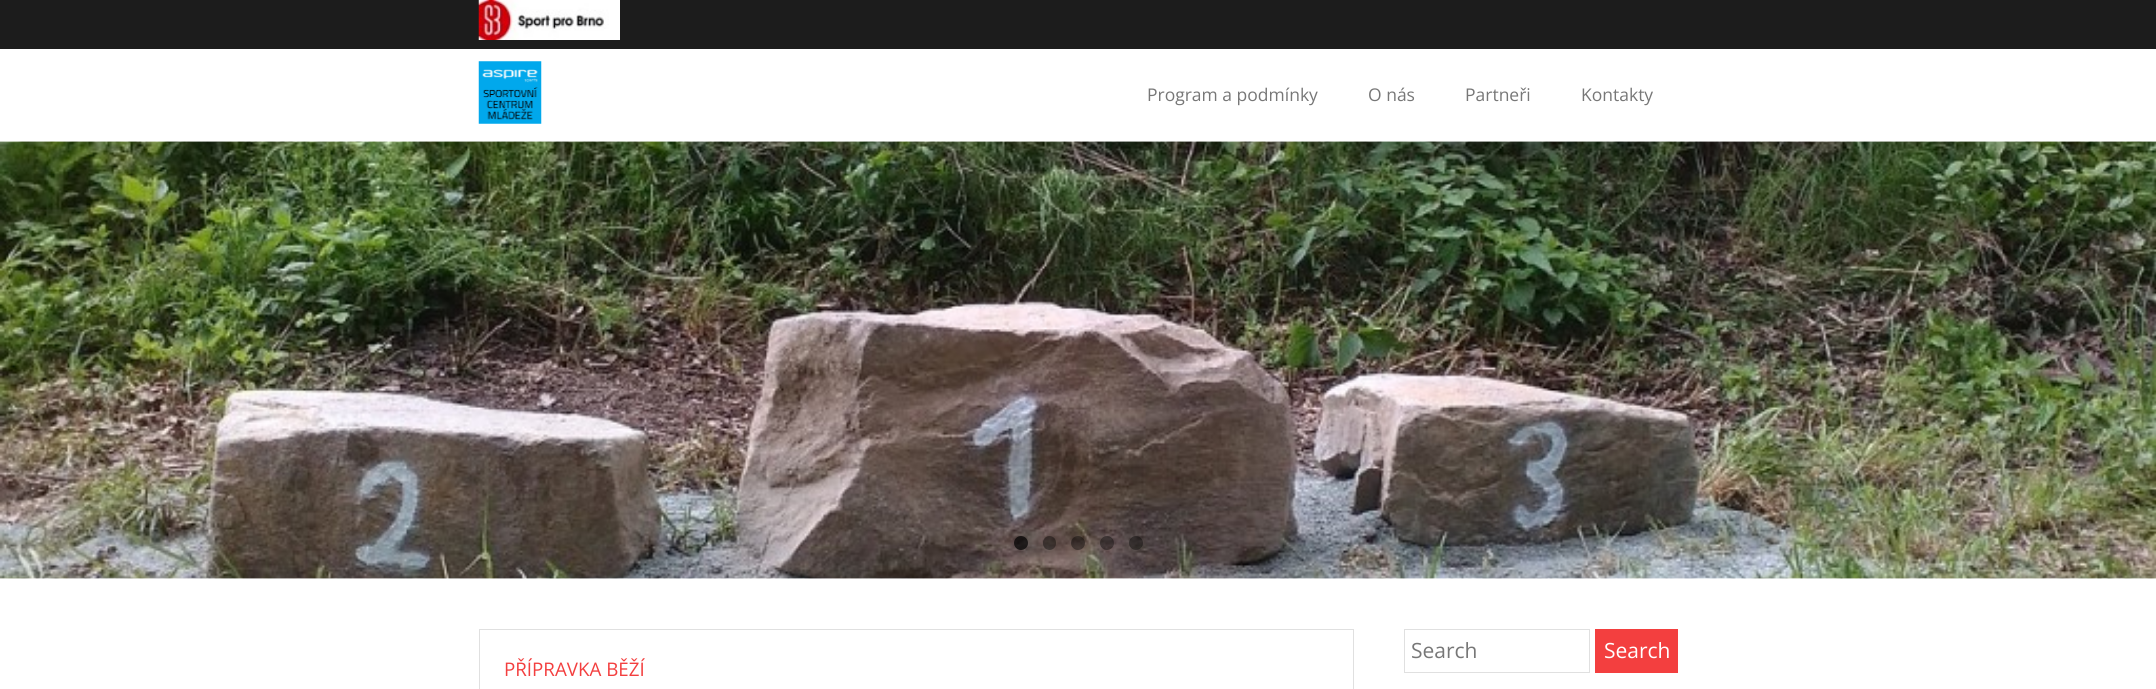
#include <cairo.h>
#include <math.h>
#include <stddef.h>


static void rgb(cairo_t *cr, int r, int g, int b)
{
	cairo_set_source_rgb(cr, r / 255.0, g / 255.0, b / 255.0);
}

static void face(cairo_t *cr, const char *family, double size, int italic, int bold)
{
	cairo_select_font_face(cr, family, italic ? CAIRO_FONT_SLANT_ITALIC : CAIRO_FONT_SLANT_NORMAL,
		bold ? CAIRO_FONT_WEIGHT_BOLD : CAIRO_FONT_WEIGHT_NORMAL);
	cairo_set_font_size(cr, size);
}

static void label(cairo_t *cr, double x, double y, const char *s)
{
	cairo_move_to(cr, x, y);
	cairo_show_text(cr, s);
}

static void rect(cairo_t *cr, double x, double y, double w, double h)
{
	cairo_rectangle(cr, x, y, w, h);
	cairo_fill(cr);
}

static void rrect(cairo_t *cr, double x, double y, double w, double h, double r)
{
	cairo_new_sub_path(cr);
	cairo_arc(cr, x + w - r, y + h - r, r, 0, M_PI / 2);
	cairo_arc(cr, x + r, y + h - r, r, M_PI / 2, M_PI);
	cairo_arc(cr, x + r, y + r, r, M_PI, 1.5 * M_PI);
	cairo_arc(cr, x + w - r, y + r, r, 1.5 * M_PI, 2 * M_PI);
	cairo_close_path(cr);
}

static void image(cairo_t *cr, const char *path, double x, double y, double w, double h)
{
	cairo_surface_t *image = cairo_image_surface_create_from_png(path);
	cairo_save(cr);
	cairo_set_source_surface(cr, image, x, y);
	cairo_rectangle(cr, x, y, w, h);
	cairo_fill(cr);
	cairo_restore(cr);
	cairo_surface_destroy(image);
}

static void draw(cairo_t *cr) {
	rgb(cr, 255, 255, 255);
	cairo_paint(cr);
	rgb(cr, 28, 28, 28);
	rect(cr, 0, 0, 2156, 49);
	image(cr, "image0.png", 478, 0, 142, 40);
	image(cr, "image1.png", 478, 61, 64, 63);
	face(cr, "Open Sans", 17.5, 0, 0);
	rgb(cr, 119, 119, 119);
	label(cr, 1147, 101, "Program a podmínky");
	label(cr, 1368, 101, "O nás");
	label(cr, 1465, 101, "Partneři");
	label(cr, 1581, 101, "Kontakty");
	image(cr, "image2.png", 0, 141, 2156, 438);
	cairo_set_source_rgba(cr, 0, 0, 0, 0.7);
	cairo_arc(cr, 1021, 543, 7, 0, 2 * M_PI);
	cairo_fill(cr);
	cairo_set_source_rgba(cr, 0, 0, 0, 0.4);
	rrect(cr, 1043, 536, 13, 14, 6.5);
	cairo_fill(cr);
	cairo_arc(cr, 1078, 543, 7, 0, 2 * M_PI);
	cairo_fill(cr);
	cairo_arc(cr, 1107, 543, 7, 0, 2 * M_PI);
	cairo_fill(cr);
	cairo_arc(cr, 1136, 543, 7, 0, 2 * M_PI);
	cairo_fill(cr);
	cairo_rectangle(cr, 1404.5, 629.5, 185, 43);
	rgb(cr, 224, 224, 224);
	cairo_set_line_width(cr, 1);
	cairo_stroke(cr);
	face(cr, "Open Sans", 21, 0, 0);
	rgb(cr, 119, 119, 119);
	label(cr, 1411, 658, "Search");
	rgb(cr, 243, 63, 63);
	rect(cr, 1595, 629, 83, 44);
	rgb(cr, 255, 255, 255);
	label(cr, 1604, 658, "Search");
	cairo_rectangle(cr, 479.5, 629.5, 874, 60);
	rgb(cr, 224, 224, 224);
	cairo_stroke(cr);
	face(cr, "Open Sans", 18.75, 0, 0);
	rgb(cr, 243, 63, 63);
	label(cr, 504, 676, "PŘÍPRAVKA BĚŽÍ");
}

int main(void) {
	cairo_surface_t *surface = cairo_image_surface_create(CAIRO_FORMAT_RGB24, 2156, 689);
	cairo_t *cr = cairo_create(surface);
	cairo_font_options_t *options = cairo_font_options_create();
	cairo_font_options_set_hint_metrics(options, CAIRO_HINT_METRICS_OFF);
	cairo_font_options_set_hint_style(options, CAIRO_HINT_STYLE_NONE);
	cairo_set_font_options(cr, options);
	cairo_set_miter_limit(cr, 4);
	draw(cr);
	cairo_surface_write_to_png(surface, "render.png");
	cairo_font_options_destroy(options);
	cairo_destroy(cr);
	cairo_surface_destroy(surface);
	return 0;
}
